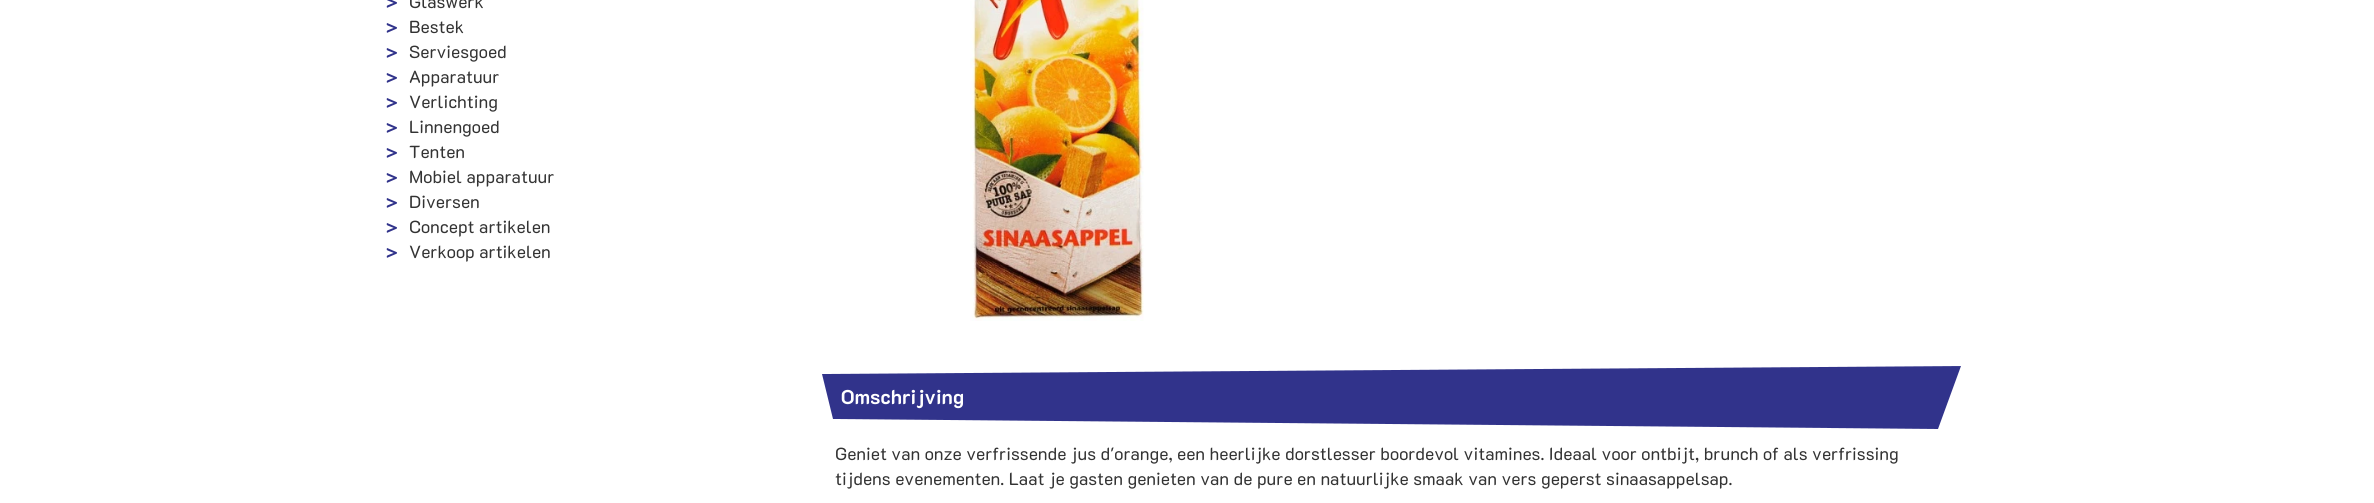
#include <cairo.h>
#include <math.h>
#include <stddef.h>


static void rgb(cairo_t *cr, int r, int g, int b)
{
	cairo_set_source_rgb(cr, r / 255.0, g / 255.0, b / 255.0);
}

static void face(cairo_t *cr, const char *family, double size, int italic, int bold)
{
	cairo_select_font_face(cr, family, italic ? CAIRO_FONT_SLANT_ITALIC : CAIRO_FONT_SLANT_NORMAL,
		bold ? CAIRO_FONT_WEIGHT_BOLD : CAIRO_FONT_WEIGHT_NORMAL);
	cairo_set_font_size(cr, size);
}

static void label(cairo_t *cr, double x, double y, const char *s)
{
	cairo_move_to(cr, x, y);
	cairo_show_text(cr, s);
}

static void image(cairo_t *cr, const char *path, double x, double y, double w, double h)
{
	cairo_surface_t *image = cairo_image_surface_create_from_png(path);
	cairo_save(cr);
	cairo_set_source_surface(cr, image, x, y);
	cairo_rectangle(cr, x, y, w, h);
	cairo_fill(cr);
	cairo_restore(cr);
	cairo_surface_destroy(image);
}

static void draw(cairo_t *cr) {
	rgb(cr, 255, 255, 255);
	cairo_paint(cr);
	face(cr, "K2D", 17.5, 0, 1);
	rgb(cr, 49, 51, 139);
	label(cr, 386, 8, ">");
	face(cr, "K2D", 17.5, 0, 0);
	rgb(cr, 51, 51, 51);
	label(cr, 409, 8, "Glaswerk");
	face(cr, "K2D", 17.5, 0, 1);
	rgb(cr, 49, 51, 139);
	label(cr, 386, 33, ">");
	face(cr, "K2D", 17.5, 0, 0);
	rgb(cr, 51, 51, 51);
	label(cr, 409, 33, "Bestek");
	face(cr, "K2D", 17.5, 0, 1);
	rgb(cr, 49, 51, 139);
	label(cr, 386, 58, ">");
	face(cr, "K2D", 17.5, 0, 0);
	rgb(cr, 51, 51, 51);
	label(cr, 409, 58, "Serviesgoed");
	face(cr, "K2D", 17.5, 0, 1);
	rgb(cr, 49, 51, 139);
	label(cr, 386, 83, ">");
	face(cr, "K2D", 17.5, 0, 0);
	rgb(cr, 51, 51, 51);
	label(cr, 409, 83, "Apparatuur");
	face(cr, "K2D", 17.5, 0, 1);
	rgb(cr, 49, 51, 139);
	label(cr, 386, 108, ">");
	face(cr, "K2D", 17.5, 0, 0);
	rgb(cr, 51, 51, 51);
	label(cr, 409, 108, "Verlichting");
	face(cr, "K2D", 17.5, 0, 1);
	rgb(cr, 49, 51, 139);
	label(cr, 386, 133, ">");
	face(cr, "K2D", 17.5, 0, 0);
	rgb(cr, 51, 51, 51);
	label(cr, 409, 133, "Linnengoed");
	face(cr, "K2D", 17.5, 0, 1);
	rgb(cr, 49, 51, 139);
	label(cr, 386, 158, ">");
	face(cr, "K2D", 17.5, 0, 0);
	rgb(cr, 51, 51, 51);
	label(cr, 409, 158, "Tenten");
	face(cr, "K2D", 17.5, 0, 1);
	rgb(cr, 49, 51, 139);
	label(cr, 386, 183, ">");
	face(cr, "K2D", 17.5, 0, 0);
	rgb(cr, 51, 51, 51);
	label(cr, 409, 183, "Mobiel apparatuur");
	face(cr, "K2D", 17.5, 0, 1);
	rgb(cr, 49, 51, 139);
	label(cr, 386, 208, ">");
	face(cr, "K2D", 17.5, 0, 0);
	rgb(cr, 51, 51, 51);
	label(cr, 409, 208, "Diversen");
	face(cr, "K2D", 17.5, 0, 1);
	rgb(cr, 49, 51, 139);
	label(cr, 386, 233, ">");
	face(cr, "K2D", 17.5, 0, 0);
	rgb(cr, 51, 51, 51);
	label(cr, 409, 233, "Concept artikelen");
	face(cr, "K2D", 17.5, 0, 1);
	rgb(cr, 49, 51, 139);
	label(cr, 386, 258, ">");
	face(cr, "K2D", 17.5, 0, 0);
	rgb(cr, 51, 51, 51);
	label(cr, 409, 258, "Verkoop artikelen");
	image(cr, "image0.png", 970, 0, 174, 321);
	rgb(cr, 49, 51, 139);
	cairo_new_path(cr);
	cairo_move_to(cr, 822, 374);
	cairo_line_to(cr, 1961, 366);
	cairo_line_to(cr, 1938, 429);
	cairo_line_to(cr, 833, 419);
	cairo_close_path(cr);
	cairo_fill(cr);
	face(cr, "K2D", 20, 0, 1);
	rgb(cr, 255, 255, 255);
	label(cr, 841, 404, "Omschrijving");
	face(cr, "K2D", 17.5, 0, 0);
	rgb(cr, 51, 51, 51);
	label(cr, 835, 460, "Geniet van onze verfrissende jus d'orange, een heerlijke dorstlesser boordevol vitamines. Ideaal voor ontbijt, brunch of als verfrissing");
	label(cr, 835, 485, "tijdens evenementen. Laat je gasten genieten van de pure en natuurlijke smaak van vers geperst sinaasappelsap.");
}

int main(void) {
	cairo_surface_t *surface = cairo_image_surface_create(CAIRO_FORMAT_RGB24, 2374, 503);
	cairo_t *cr = cairo_create(surface);
	cairo_font_options_t *options = cairo_font_options_create();
	cairo_font_options_set_hint_metrics(options, CAIRO_HINT_METRICS_OFF);
	cairo_font_options_set_hint_style(options, CAIRO_HINT_STYLE_NONE);
	cairo_set_font_options(cr, options);
	cairo_set_miter_limit(cr, 4);
	draw(cr);
	cairo_surface_write_to_png(surface, "render.png");
	cairo_font_options_destroy(options);
	cairo_destroy(cr);
	cairo_surface_destroy(surface);
	return 0;
}
